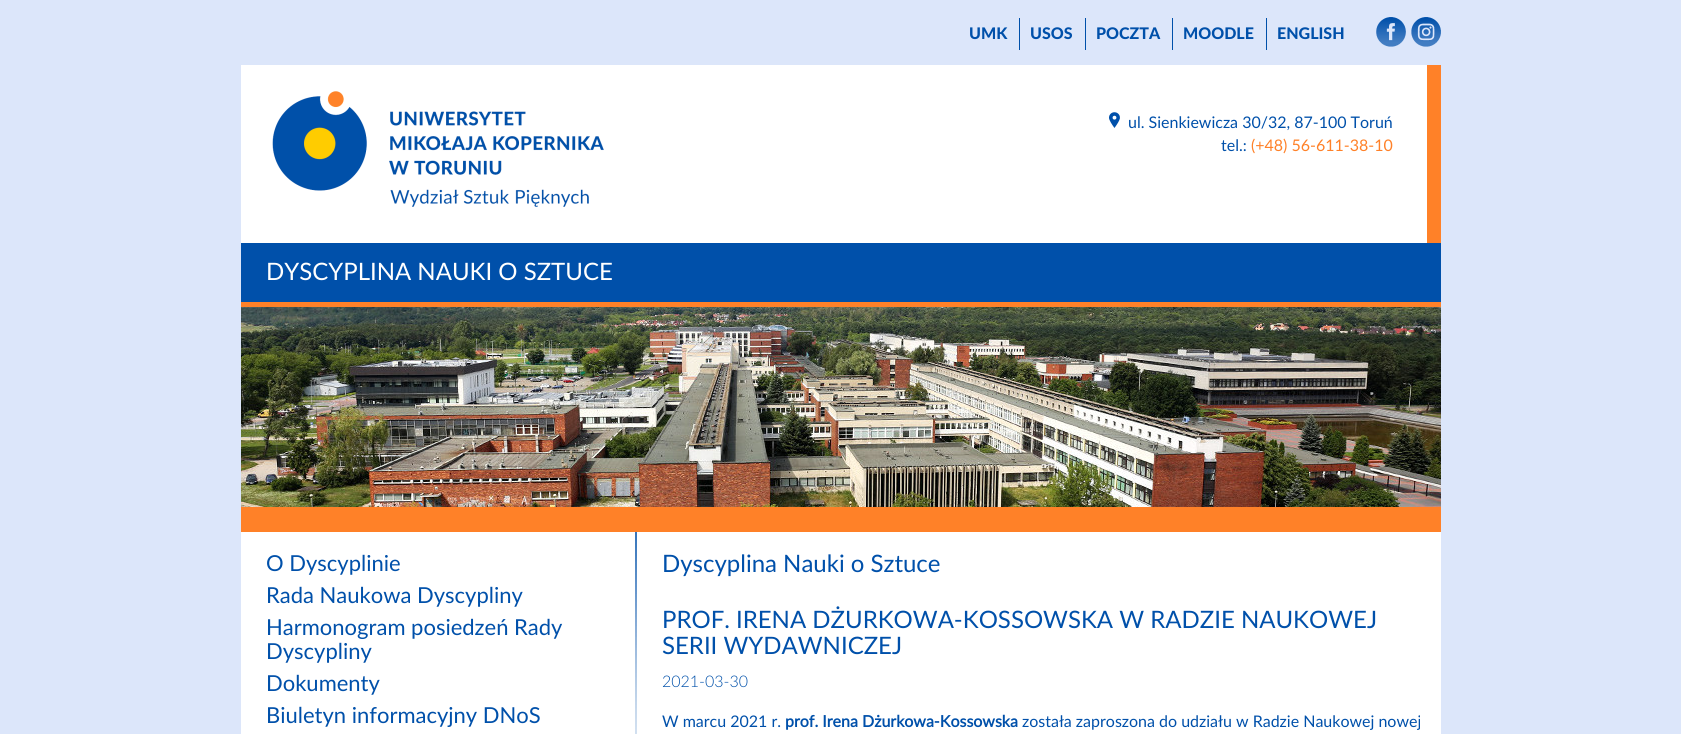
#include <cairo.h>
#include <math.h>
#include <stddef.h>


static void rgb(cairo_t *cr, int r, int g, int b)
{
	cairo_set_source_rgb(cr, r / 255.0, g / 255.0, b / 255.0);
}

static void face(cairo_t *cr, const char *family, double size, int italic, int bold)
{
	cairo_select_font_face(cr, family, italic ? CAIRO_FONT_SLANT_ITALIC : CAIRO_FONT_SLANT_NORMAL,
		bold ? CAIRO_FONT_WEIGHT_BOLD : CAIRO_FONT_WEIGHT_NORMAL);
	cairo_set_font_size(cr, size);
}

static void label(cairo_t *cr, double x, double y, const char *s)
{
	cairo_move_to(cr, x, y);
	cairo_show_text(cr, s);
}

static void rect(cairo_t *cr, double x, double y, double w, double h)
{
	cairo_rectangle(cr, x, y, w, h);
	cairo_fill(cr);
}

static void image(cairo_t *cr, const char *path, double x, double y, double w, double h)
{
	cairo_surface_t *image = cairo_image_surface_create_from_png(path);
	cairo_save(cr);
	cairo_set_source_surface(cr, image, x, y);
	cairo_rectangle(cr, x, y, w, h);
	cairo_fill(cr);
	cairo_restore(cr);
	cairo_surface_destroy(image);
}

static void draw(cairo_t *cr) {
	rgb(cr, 220, 230, 250);
	cairo_paint(cr);
	face(cr, "Lato Black", 16, 0, 0);
	rgb(cr, 0, 80, 170);
	label(cr, 969, 39, "UMK");
	rect(cr, 1019, 18, 1, 32);
	label(cr, 1030, 39, "USOS");
	rect(cr, 1085, 18, 1, 32);
	label(cr, 1096, 39, "POCZTA");
	rect(cr, 1172, 18, 1, 32);
	label(cr, 1183, 39, "MOODLE");
	rect(cr, 1266, 18, 1, 32);
	label(cr, 1277, 39, "ENGLISH");
	image(cr, "image0.png", 1376, 17, 30, 30);
	image(cr, "image1.png", 1411, 17, 30, 30);
	rgb(cr, 255, 255, 255);
	rect(cr, 241, 65, 1186, 178);
	rgb(cr, 255, 129, 40);
	rect(cr, 1427, 65, 14, 178);
	image(cr, "image2.png", 272, 91, 332, 116);
	image(cr, "image3.png", 1109, 112, 11, 16);
	face(cr, "Lato", 16, 0, 0);
	rgb(cr, 0, 80, 170);
	label(cr, 1128, 128, "ul. Sienkiewicza 30/32, 87-100 Toruń");
	label(cr, 1221, 151, "tel.:");
	rgb(cr, 255, 129, 40);
	label(cr, 1251, 151, "(+48) 56-611-38-10");
	rgb(cr, 0, 80, 170);
	rect(cr, 241, 243, 1200, 59);
	face(cr, "Lato", 24, 0, 0);
	rgb(cr, 255, 255, 255);
	label(cr, 266, 280, "DYSCYPLINA NAUKI O SZTUCE");
	rgb(cr, 255, 129, 40);
	rect(cr, 241, 302, 1200, 5);
	image(cr, "image4.png", 241, 307, 1200, 200);
	rect(cr, 241, 507, 1200, 25);
	rgb(cr, 255, 255, 255);
	rect(cr, 241, 532, 1200, 202);
	image(cr, "image5.png", 635, 532, 2, 202);
	face(cr, "Lato", 22, 0, 0);
	rgb(cr, 0, 80, 170);
	label(cr, 266, 571, "O Dyscyplinie");
	label(cr, 266, 603, "Rada Naukowa Dyscypliny");
	label(cr, 266, 635, "Harmonogram posiedzeń Rady");
	label(cr, 266, 659, "Dyscypliny");
	label(cr, 266, 691, "Dokumenty");
	label(cr, 266, 723, "Biuletyn informacyjny DNoS");
	face(cr, "Lato", 24, 0, 0);
	label(cr, 662, 572, "Dyscyplina Nauki o Sztuce");
	label(cr, 662, 628, "PROF. IRENA DŻURKOWA-KOSSOWSKA W RADZIE NAUKOWEJ");
	label(cr, 662, 654, "SERII WYDAWNICZEJ");
	face(cr, "Lato Light", 16, 0, 0);
	label(cr, 662, 687, "2021-03-30");
	face(cr, "Lato", 16, 0, 0);
	label(cr, 662, 727, "W marcu 2021 r.");
	face(cr, "Lato", 16, 0, 1);
	label(cr, 785, 727, "prof. Irena Dżurkowa-Kossowska");
	face(cr, "Lato", 16, 0, 0);
	label(cr, 1022, 727, "została zaproszona do udziału w Radzie Naukowej nowej");
}

int main(void) {
	cairo_surface_t *surface = cairo_image_surface_create(CAIRO_FORMAT_RGB24, 1681, 734);
	cairo_t *cr = cairo_create(surface);
	cairo_font_options_t *options = cairo_font_options_create();
	cairo_font_options_set_hint_metrics(options, CAIRO_HINT_METRICS_OFF);
	cairo_font_options_set_hint_style(options, CAIRO_HINT_STYLE_NONE);
	cairo_set_font_options(cr, options);
	cairo_set_miter_limit(cr, 4);
	draw(cr);
	cairo_surface_write_to_png(surface, "render.png");
	cairo_font_options_destroy(options);
	cairo_destroy(cr);
	cairo_surface_destroy(surface);
	return 0;
}
